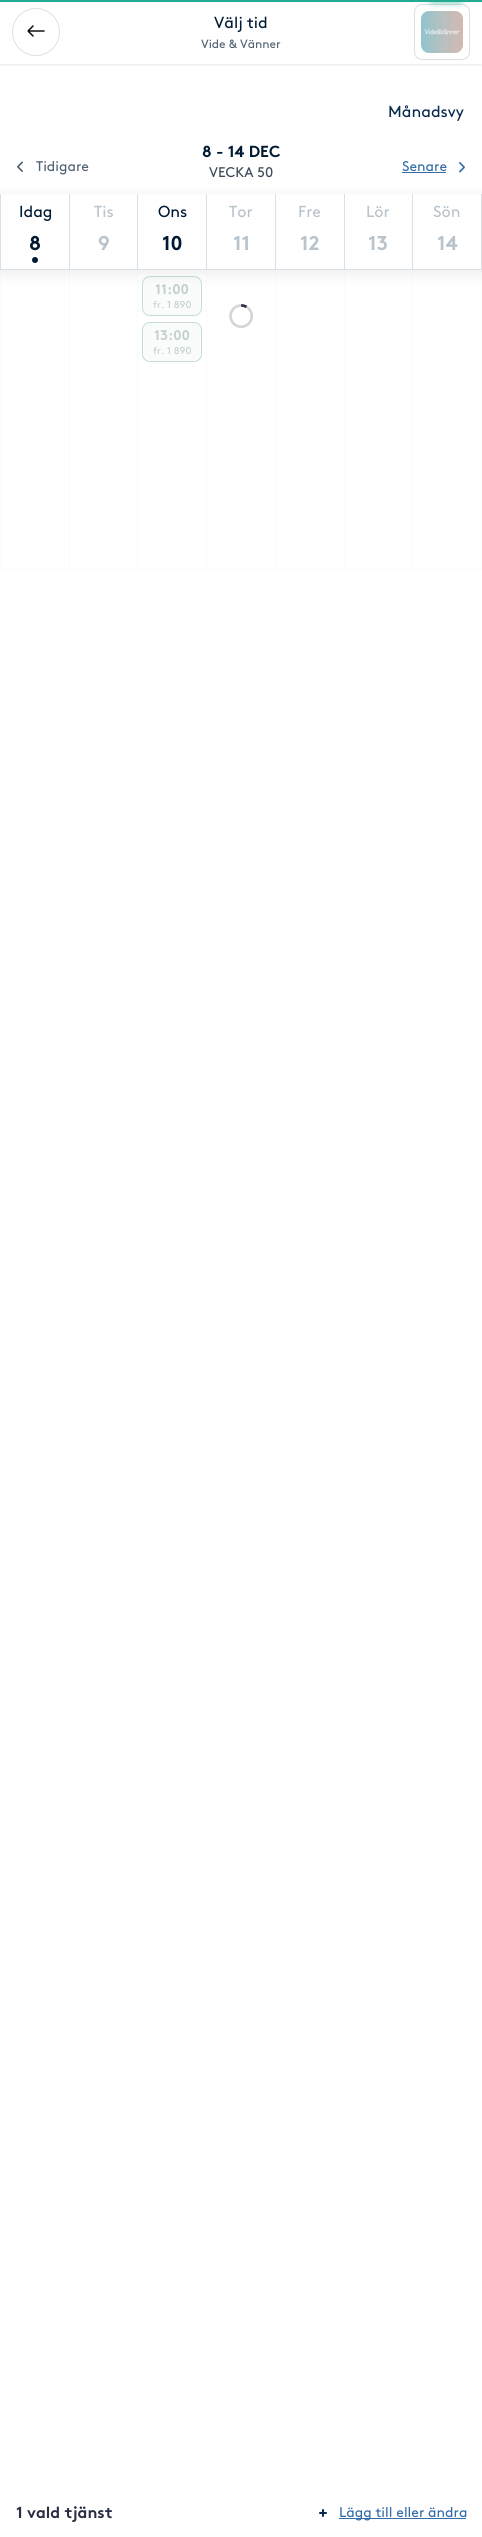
#include <cairo.h>
#include <math.h>
#include <stddef.h>


static void rgb(cairo_t *cr, int r, int g, int b)
{
	cairo_set_source_rgb(cr, r / 255.0, g / 255.0, b / 255.0);
}

static void face(cairo_t *cr, const char *family, double size, int italic, int bold)
{
	cairo_select_font_face(cr, family, italic ? CAIRO_FONT_SLANT_ITALIC : CAIRO_FONT_SLANT_NORMAL,
		bold ? CAIRO_FONT_WEIGHT_BOLD : CAIRO_FONT_WEIGHT_NORMAL);
	cairo_set_font_size(cr, size);
}

static void label(cairo_t *cr, double x, double y, const char *s)
{
	cairo_move_to(cr, x, y);
	cairo_show_text(cr, s);
}

static void rect(cairo_t *cr, double x, double y, double w, double h)
{
	cairo_rectangle(cr, x, y, w, h);
	cairo_fill(cr);
}

static void rrect(cairo_t *cr, double x, double y, double w, double h, double r)
{
	cairo_new_sub_path(cr);
	cairo_arc(cr, x + w - r, y + h - r, r, 0, M_PI / 2);
	cairo_arc(cr, x + r, y + h - r, r, M_PI / 2, M_PI);
	cairo_arc(cr, x + r, y + r, r, M_PI, 1.5 * M_PI);
	cairo_arc(cr, x + w - r, y + r, r, 1.5 * M_PI, 2 * M_PI);
	cairo_close_path(cr);
}

static void soft_shadow(cairo_t *cr, double x, double y, double w, double h, double r, double blur, double alpha)
{
	cairo_push_group_with_content(cr, CAIRO_CONTENT_ALPHA);
	cairo_set_operator(cr, CAIRO_OPERATOR_SOURCE);
	for (int i = 15; i >= -15 && fmin(w, h) + blur * i / 3 > 0; i -= 2) {
		double e = blur * i / 6;
		cairo_set_source_rgba(cr, 0, 0, 0, alpha * erfc((i - 1) / 8.5) / 2);
		rrect(cr, x - e, y - e, w + 2 * e, h + 2 * e, fmax(0, fmin(r + e + blur * .6, fmin(w, h) / 2 + e)));
		cairo_fill(cr);
	}
	cairo_pattern_t *soft = cairo_pop_group(cr);
	cairo_mask(cr, soft);
	cairo_pattern_destroy(soft);
}

static void image(cairo_t *cr, const char *path, double x, double y, double w, double h)
{
	cairo_surface_t *image = cairo_image_surface_create_from_png(path);
	cairo_save(cr);
	cairo_set_source_surface(cr, image, x, y);
	cairo_rectangle(cr, x, y, w, h);
	cairo_fill(cr);
	cairo_restore(cr);
	cairo_surface_destroy(image);
}

static void draw(cairo_t *cr) {
	rgb(cr, 255, 255, 255);
	cairo_paint(cr);
	cairo_save(cr);
	cairo_rectangle(cr, 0, 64, 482, 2);
	cairo_clip(cr);
	rgb(cr, 0, 26, 51);
	soft_shadow(cr, 0, 1, 482, 64, 0, 1.5, 0.1);
	cairo_restore(cr);
	rgb(cr, 35, 169, 148);
	rect(cr, 0, 0, 482, 2);
	rrect(cr, 414.5, 4.5, 55, 55, 7.5);
	rgb(cr, 217, 224, 231);
	cairo_set_line_width(cr, 1);
	cairo_stroke(cr);
	image(cr, "image1.png", 421, 11, 42, 42);
	rgb(cr, 35, 169, 148);
	soft_shadow(cr, 434, -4, 24, 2, 0, 5, 1);
	soft_shadow(cr, 434, -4, 24, 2, 0, 5, 1);
	cairo_arc(cr, 36, 32, 23.5, 0, 2 * M_PI);
	rgb(cr, 217, 224, 231);
	cairo_stroke(cr);
	image(cr, "image0.png", 27, 25, 18, 12);
	face(cr, "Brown", 16, 0, 0);
	rgb(cr, 0, 26, 51);
	label(cr, 214, 28, "Välj tid");
	face(cr, "Brown", 12, 0, 0);
	rgb(cr, 80, 97, 114);
	label(cr, 201, 48, "Vide & Vänner");
	face(cr, "Brown", 16, 0, 0);
	rgb(cr, 9, 42, 78);
	label(cr, 388, 117, "Månadsvy");
	face(cr, "Brown", 16, 0, 1);
	rgb(cr, 0, 26, 51);
	label(cr, 202, 157, "8 - 14 DEC");
	face(cr, "Brown", 14, 0, 0);
	rgb(cr, 59, 74, 88);
	label(cr, 209, 177, "VECKA 50");
	rgb(cr, 249, 251, 252);
	rect(cr, 0, 569, 412, 1);
	rect(cr, 0, 270, 1, 300);
	rect(cr, 69, 270, 1, 300);
	rect(cr, 137, 270, 1, 300);
	rgb(cr, 249, 252, 251);
	rrect(cr, 142.5, 276.5, 59, 39, 7.5);
	cairo_fill_preserve(cr);
	rgb(cr, 197, 220, 215);
	cairo_stroke(cr);
	rgb(cr, 249, 251, 252);
	rect(cr, 206, 270, 1, 300);
	rect(cr, 275, 270, 1, 300);
	rect(cr, 344, 270, 1, 300);
	rect(cr, 481, 270, 1, 300);
	rect(cr, 412, 569, 70, 1);
	rect(cr, 412, 270, 1, 300);
	cairo_save(cr);
	cairo_set_fill_rule(cr, CAIRO_FILL_RULE_EVEN_ODD);
	cairo_new_path(cr);
	cairo_move_to(cr, 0, 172);
	cairo_line_to(cr, 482, 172);
	cairo_line_to(cr, 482, 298);
	cairo_line_to(cr, 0, 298);
	cairo_close_path(cr);
	cairo_move_to(cr, 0, 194);
	cairo_line_to(cr, 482, 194);
	cairo_line_to(cr, 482, 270);
	cairo_line_to(cr, 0, 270);
	cairo_close_path(cr);
	cairo_clip(cr);
	rgb(cr, 0, 0, 0);
	soft_shadow(cr, 0, 197, 482, 76, 0, 8, 0.08);
	cairo_restore(cr);
	image(cr, "image2.png", 17, 161, 6, 11);
	rgb(cr, 80, 97, 114);
	label(cr, 36, 171, "Tidigare");
	rgb(cr, 51, 108, 168);
	label(cr, 402, 171, "Senare");
	rect(cr, 402, 172, 44, 1);
	image(cr, "image3.png", 459, 162, 6, 11);
	rgb(cr, 217, 224, 231);
	rect(cr, 0, 269, 412, 1);
	rect(cr, 0, 194, 1, 76);
	face(cr, "Brown", 16, 0, 0);
	rgb(cr, 0, 26, 51);
	label(cr, 19, 217, "Idag");
	face(cr, "Brown", 20, 0, 1);
	label(cr, 29, 250, "8");
	cairo_new_path(cr);
	cairo_arc(cr, 35, 260, 3, 0, 2 * M_PI);
	cairo_fill(cr);
	rgb(cr, 217, 224, 231);
	rect(cr, 69, 194, 1, 76);
	face(cr, "Brown", 16, 0, 0);
	rgb(cr, 184, 195, 204);
	label(cr, 94, 217, "Tis");
	face(cr, "Brown", 20, 0, 1);
	label(cr, 98, 250, "9");
	rgb(cr, 217, 224, 231);
	rect(cr, 137, 194, 1, 76);
	face(cr, "Brown", 16, 0, 0);
	rgb(cr, 0, 26, 51);
	label(cr, 158, 217, "Ons");
	face(cr, "Brown", 20, 0, 1);
	label(cr, 162, 250, "10");
	rgb(cr, 217, 224, 231);
	rect(cr, 206, 194, 1, 76);
	face(cr, "Brown", 16, 0, 0);
	rgb(cr, 184, 195, 204);
	label(cr, 229, 217, "Tor");
	face(cr, "Brown", 20, 0, 1);
	label(cr, 233, 250, "11");
	rgb(cr, 217, 224, 231);
	rect(cr, 275, 194, 1, 76);
	face(cr, "Brown", 16, 0, 0);
	rgb(cr, 184, 195, 204);
	label(cr, 298, 217, "Fre");
	face(cr, "Brown", 20, 0, 1);
	label(cr, 300, 250, "12");
	rgb(cr, 217, 224, 231);
	rect(cr, 344, 194, 1, 76);
	face(cr, "Brown", 16, 0, 0);
	rgb(cr, 184, 195, 204);
	label(cr, 366, 217, "Lör");
	face(cr, "Brown", 20, 0, 1);
	label(cr, 368, 250, "13");
	rgb(cr, 217, 224, 231);
	rect(cr, 481, 194, 1, 76);
	rect(cr, 412, 269, 70, 1);
	rect(cr, 412, 194, 1, 76);
	face(cr, "Brown", 16, 0, 0);
	rgb(cr, 184, 195, 204);
	label(cr, 433, 217, "Sön");
	face(cr, "Brown", 20, 0, 1);
	label(cr, 437, 250, "14");
	face(cr, "Brown", 14, 0, 1);
	rgb(cr, 195, 207, 205);
	label(cr, 155, 294, "11:00");
	face(cr, "Brown", 10, 0, 0);
	label(cr, 153, 308, "fr. 1 890");
	rgb(cr, 249, 252, 251);
	rrect(cr, 142.5, 322.5, 59, 39, 7.5);
	cairo_fill_preserve(cr);
	rgb(cr, 197, 220, 215);
	cairo_stroke(cr);
	face(cr, "Brown", 14, 0, 1);
	rgb(cr, 195, 207, 205);
	label(cr, 154, 340, "13:00");
	face(cr, "Brown", 10, 0, 0);
	label(cr, 153, 354, "fr. 1 890");
	image(cr, "image4.png", 229, 304, 24, 24);
	face(cr, "Brown", 16, 0, 1);
	rgb(cr, 42, 46, 67);
	label(cr, 16, 2518, "1 vald tjänst");
	image(cr, "image5.png", 319, 2509, 8, 8);
	rgb(cr, 51, 108, 168);
	rect(cr, 339, 2518, 127, 1);
	face(cr, "Brown", 14, 0, 0);
	label(cr, 339, 2517, "Lägg till eller ändra");
}

int main(void) {
	cairo_surface_t *surface = cairo_image_surface_create(CAIRO_FORMAT_RGB24, 482, 2537);
	cairo_t *cr = cairo_create(surface);
	cairo_font_options_t *options = cairo_font_options_create();
	cairo_font_options_set_hint_metrics(options, CAIRO_HINT_METRICS_OFF);
	cairo_font_options_set_hint_style(options, CAIRO_HINT_STYLE_NONE);
	cairo_set_font_options(cr, options);
	cairo_set_miter_limit(cr, 4);
	draw(cr);
	cairo_surface_write_to_png(surface, "render.png");
	cairo_font_options_destroy(options);
	cairo_destroy(cr);
	cairo_surface_destroy(surface);
	return 0;
}
